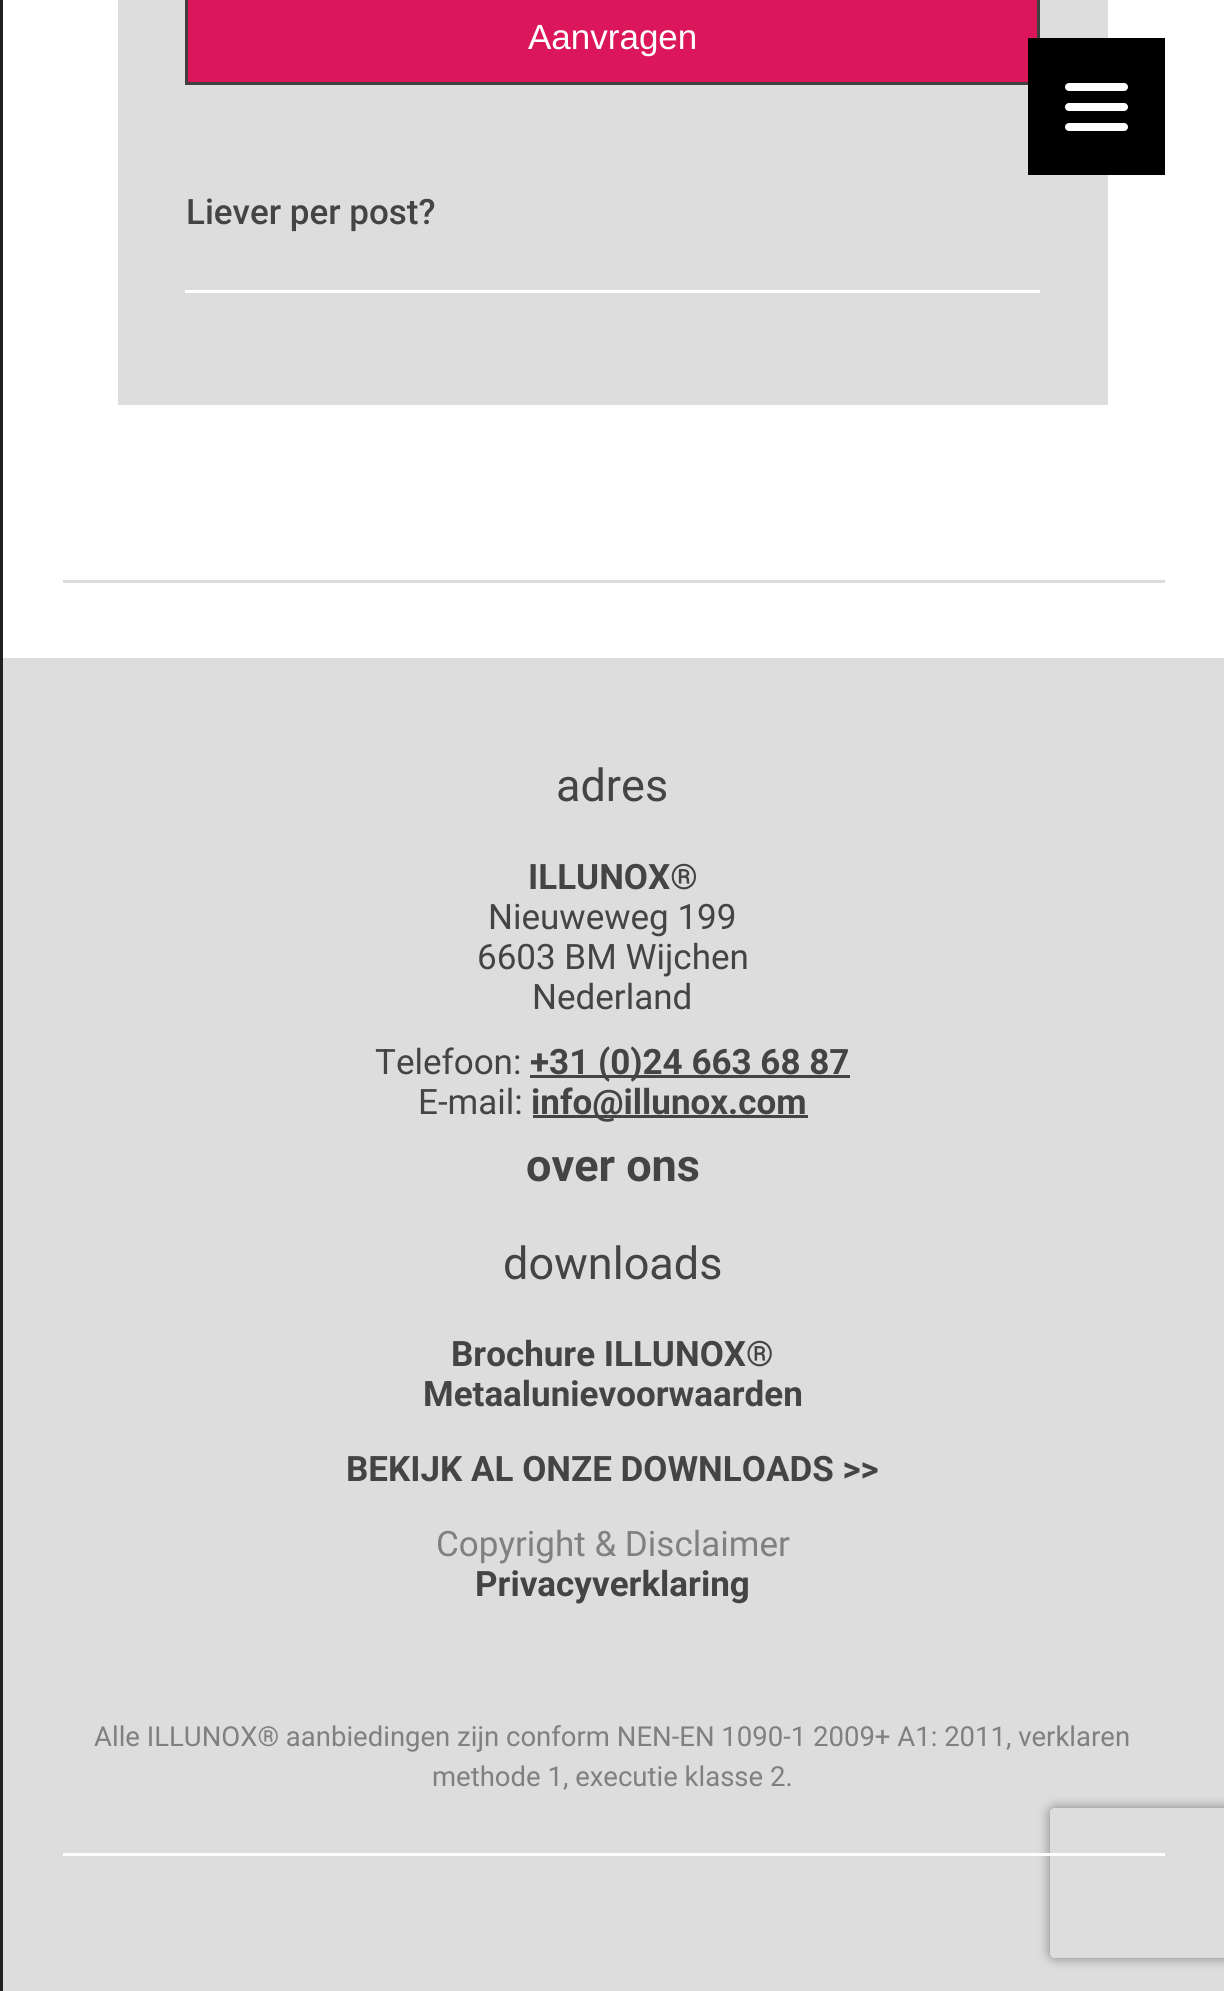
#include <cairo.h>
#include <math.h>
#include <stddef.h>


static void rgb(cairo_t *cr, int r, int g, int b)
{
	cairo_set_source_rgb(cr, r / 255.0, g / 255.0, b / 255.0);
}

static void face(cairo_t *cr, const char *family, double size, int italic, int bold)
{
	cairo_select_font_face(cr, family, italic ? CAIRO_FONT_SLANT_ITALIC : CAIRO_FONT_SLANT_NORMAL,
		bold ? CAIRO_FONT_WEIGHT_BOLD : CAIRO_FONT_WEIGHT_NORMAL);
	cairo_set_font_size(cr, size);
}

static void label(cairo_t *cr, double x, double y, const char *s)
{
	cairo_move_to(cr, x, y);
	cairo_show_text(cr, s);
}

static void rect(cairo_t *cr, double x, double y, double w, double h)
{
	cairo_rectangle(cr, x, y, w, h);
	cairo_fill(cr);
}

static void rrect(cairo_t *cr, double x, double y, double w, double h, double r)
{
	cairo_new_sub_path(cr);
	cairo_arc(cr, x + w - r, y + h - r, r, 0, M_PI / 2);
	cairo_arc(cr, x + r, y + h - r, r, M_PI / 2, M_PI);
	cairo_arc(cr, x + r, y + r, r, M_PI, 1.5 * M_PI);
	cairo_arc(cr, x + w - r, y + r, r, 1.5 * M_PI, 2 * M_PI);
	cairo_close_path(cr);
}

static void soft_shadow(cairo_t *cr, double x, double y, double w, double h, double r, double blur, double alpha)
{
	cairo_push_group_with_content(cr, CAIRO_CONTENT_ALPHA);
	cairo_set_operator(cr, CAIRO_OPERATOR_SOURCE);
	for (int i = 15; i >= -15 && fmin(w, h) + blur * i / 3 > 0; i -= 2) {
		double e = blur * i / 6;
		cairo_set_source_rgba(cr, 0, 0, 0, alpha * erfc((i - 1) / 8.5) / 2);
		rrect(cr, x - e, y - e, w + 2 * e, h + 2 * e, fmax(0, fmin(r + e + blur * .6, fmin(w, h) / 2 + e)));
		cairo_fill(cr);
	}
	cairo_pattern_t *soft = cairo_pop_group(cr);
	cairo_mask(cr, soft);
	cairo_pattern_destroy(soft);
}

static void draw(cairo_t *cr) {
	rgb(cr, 255, 255, 255);
	cairo_paint(cr);
	rgb(cr, 33, 33, 33);
	rect(cr, 0, 0, 3, 1991);
	rgb(cr, 221, 221, 221);
	rect(cr, 63, 580, 1102, 3);
	rect(cr, 118, 0, 990, 405);
	rgb(cr, 255, 255, 255);
	rect(cr, 185, 290, 855, 3);
	rgb(cr, 220, 22, 91);
	cairo_rectangle(cr, 186.5, -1.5, 852, 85);
	cairo_fill_preserve(cr);
	rgb(cr, 64, 64, 65);
	cairo_set_line_width(cr, 3);
	cairo_stroke(cr);
	face(cr, "Liberation Sans", 35, 0, 0);
	rgb(cr, 255, 255, 255);
	label(cr, 528, 49, "Aanvragen");
	rgb(cr, 221, 221, 221);
	rect(cr, 3, 658, 1221, 1333);
	cairo_save(cr);
	cairo_set_fill_rule(cr, CAIRO_FILL_RULE_EVEN_ODD);
	cairo_new_path(cr);
	cairo_move_to(cr, 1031, 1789);
	cairo_line_to(cr, 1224, 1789);
	cairo_line_to(cr, 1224, 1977);
	cairo_line_to(cr, 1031, 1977);
	cairo_close_path(cr);
	cairo_move_to(cr, 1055, 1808);
	cairo_line_to(cr, 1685, 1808);
	cairo_curve_to(cr, 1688, 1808, 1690, 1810, 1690, 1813);
	cairo_line_to(cr, 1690, 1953);
	cairo_curve_to(cr, 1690, 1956, 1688, 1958, 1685, 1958);
	cairo_line_to(cr, 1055, 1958);
	cairo_curve_to(cr, 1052, 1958, 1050, 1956, 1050, 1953);
	cairo_line_to(cr, 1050, 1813);
	cairo_curve_to(cr, 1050, 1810, 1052, 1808, 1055, 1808);
	cairo_close_path(cr);
	cairo_clip(cr);
	rgb(cr, 128, 128, 128);
	soft_shadow(cr, 1050, 1808, 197, 150, 5, 6, 1);
	cairo_restore(cr);
	face(cr, "Roboto Medium", 35, 0, 0);
	rgb(cr, 68, 68, 68);
	label(cr, 186, 224, "Liever per post?");
	rgb(cr, 0, 0, 0);
	rect(cr, 1028, 38, 137, 137);
	rgb(cr, 255, 255, 255);
	rrect(cr, 1065, 103, 63, 8, 4);
	cairo_fill(cr);
	rrect(cr, 1065, 83, 63, 8, 4);
	cairo_fill(cr);
	rrect(cr, 1065, 123, 63, 8, 4);
	cairo_fill(cr);
	face(cr, "Roboto", 45, 0, 0);
	rgb(cr, 68, 68, 68);
	label(cr, 556, 801, "adres");
	face(cr, "Roboto", 35, 0, 1);
	label(cr, 528, 889, "ILLUNOX®");
	face(cr, "Roboto", 35, 0, 0);
	label(cr, 488, 929, "Nieuweweg 199");
	label(cr, 477, 969, "6603 BM Wijchen");
	label(cr, 532, 1009, "Nederland");
	label(cr, 375, 1074, "Telefoon:");
	rect(cr, 530, 1075, 320, 3);
	face(cr, "Roboto", 35, 0, 1);
	label(cr, 530, 1074, "+31 (0)24 663 68 87");
	face(cr, "Roboto", 35, 0, 0);
	label(cr, 418, 1114, "E-mail:");
	rect(cr, 533, 1115, 275, 3);
	face(cr, "Roboto", 35, 0, 1);
	label(cr, 531, 1114, "info@illunox.com");
	face(cr, "Roboto", 45, 0, 1);
	label(cr, 526, 1181, "over ons");
	face(cr, "Roboto", 45, 0, 0);
	label(cr, 503, 1279, "downloads");
	rgb(cr, 255, 255, 255);
	rect(cr, 63, 1853, 1102, 3);
	face(cr, "Roboto", 35, 0, 1);
	rgb(cr, 68, 68, 68);
	label(cr, 451, 1366, "Brochure ILLUNOX®");
	label(cr, 423, 1406, "Metaalunievoorwaarden");
	label(cr, 346, 1481, "BEKIJK AL ONZE DOWNLOADS >>");
	face(cr, "Roboto", 35, 0, 0);
	rgb(cr, 128, 128, 128);
	label(cr, 436, 1556, "Copyright & Disclaimer");
	face(cr, "Roboto", 35, 0, 1);
	rgb(cr, 68, 68, 68);
	label(cr, 475, 1596, "Privacyverklaring");
	face(cr, "Roboto", 27.5, 0, 0);
	rgb(cr, 128, 128, 128);
	label(cr, 94, 1746, "Alle ILLUNOX® aanbiedingen zijn conform NEN-EN 1090-1 2009+ A1: 2011, verklaren");
	label(cr, 432, 1786, "methode 1, executie klasse 2.");
}

int main(void) {
	cairo_surface_t *surface = cairo_image_surface_create(CAIRO_FORMAT_RGB24, 1224, 1991);
	cairo_t *cr = cairo_create(surface);
	cairo_font_options_t *options = cairo_font_options_create();
	cairo_font_options_set_hint_metrics(options, CAIRO_HINT_METRICS_OFF);
	cairo_font_options_set_hint_style(options, CAIRO_HINT_STYLE_NONE);
	cairo_set_font_options(cr, options);
	cairo_set_miter_limit(cr, 4);
	draw(cr);
	cairo_surface_write_to_png(surface, "render.png");
	cairo_font_options_destroy(options);
	cairo_destroy(cr);
	cairo_surface_destroy(surface);
	return 0;
}
